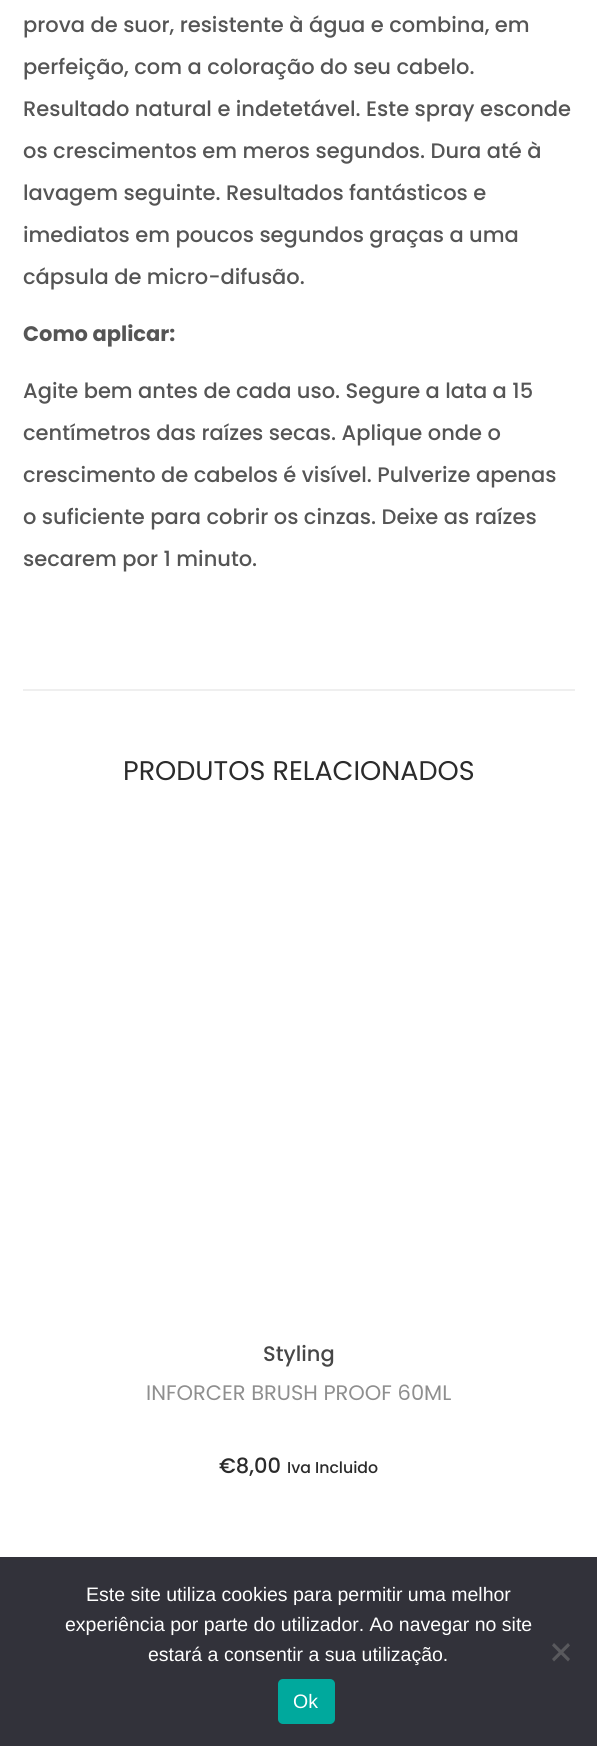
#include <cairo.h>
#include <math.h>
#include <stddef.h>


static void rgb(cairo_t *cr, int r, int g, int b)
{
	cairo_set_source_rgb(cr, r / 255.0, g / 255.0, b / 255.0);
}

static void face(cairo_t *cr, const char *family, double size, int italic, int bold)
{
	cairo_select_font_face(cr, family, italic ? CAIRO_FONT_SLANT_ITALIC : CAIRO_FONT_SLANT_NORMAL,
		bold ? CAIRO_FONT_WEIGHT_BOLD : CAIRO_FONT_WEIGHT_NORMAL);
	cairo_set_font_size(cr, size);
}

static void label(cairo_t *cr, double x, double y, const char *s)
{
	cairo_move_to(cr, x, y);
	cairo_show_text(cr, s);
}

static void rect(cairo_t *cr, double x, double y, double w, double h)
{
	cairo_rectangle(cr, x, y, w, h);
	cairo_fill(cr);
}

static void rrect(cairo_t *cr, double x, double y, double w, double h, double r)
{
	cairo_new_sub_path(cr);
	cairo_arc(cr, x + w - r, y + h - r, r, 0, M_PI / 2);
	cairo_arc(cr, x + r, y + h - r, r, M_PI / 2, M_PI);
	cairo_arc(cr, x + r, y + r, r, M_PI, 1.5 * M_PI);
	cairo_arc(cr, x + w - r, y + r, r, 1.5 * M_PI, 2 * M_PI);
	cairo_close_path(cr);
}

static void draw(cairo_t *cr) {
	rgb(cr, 255, 255, 255);
	cairo_paint(cr);
	face(cr, "Poppins Medium", 21, 0, 0);
	rgb(cr, 85, 85, 85);
	label(cr, 23, 32, "prova de suor, resistente à água e combina, em");
	label(cr, 23, 74, "perfeição, com a coloração do seu cabelo.");
	label(cr, 23, 116, "Resultado natural e indetetável. Este spray esconde");
	label(cr, 23, 158, "os crescimentos em meros segundos. Dura até à");
	label(cr, 23, 200, "lavagem seguinte. Resultados fantásticos e");
	label(cr, 23, 242, "imediatos em poucos segundos graças a uma");
	label(cr, 23, 284, "cápsula de micro-difusão.");
	face(cr, "Poppins", 21, 0, 1);
	label(cr, 23, 341, "Como aplicar:");
	face(cr, "Poppins Medium", 21, 0, 0);
	label(cr, 23, 398, "Agite bem antes de cada uso. Segure a lata a 15");
	label(cr, 23, 440, "centímetros das raízes secas. Aplique onde o");
	label(cr, 23, 482, "crescimento de cabelos é visível. Pulverize apenas");
	label(cr, 23, 524, "o suficiente para cobrir os cinzas. Deixe as raízes");
	label(cr, 23, 566, "secarem por 1 minuto.");
	rgb(cr, 239, 239, 239);
	rect(cr, 23, 689, 552, 2);
	face(cr, "Poppins", 27, 0, 0);
	rgb(cr, 43, 43, 43);
	label(cr, 123, 780, "PRODUTOS RELACIONADOS");
	face(cr, "Poppins Medium", 21, 0, 0);
	rgb(cr, 71, 71, 71);
	label(cr, 263, 1361, "Styling");
	face(cr, "Poppins", 21, 0, 0);
	rgb(cr, 143, 143, 143);
	label(cr, 146, 1400, "INFORCER BRUSH PROOF 60ML");
	face(cr, "Poppins Medium", 21, 0, 0);
	rgb(cr, 43, 43, 43);
	label(cr, 219, 1473, "€8,00");
	face(cr, "Poppins Medium", 15.75, 0, 0);
	label(cr, 287, 1473, "Iva Incluido");
	rgb(cr, 50, 50, 58);
	rect(cr, 0, 1557, 597, 189);
	face(cr, "Liberation Sans", 19.5, 0, 0);
	rgb(cr, 255, 255, 255);
	label(cr, 86, 1601, "Este site utiliza cookies para permitir uma melhor");
	label(cr, 65, 1631, "experiência por parte do utilizador. Ao navegar no site");
	label(cr, 148, 1661, "estará a consentir a sua utilização.");
	rgb(cr, 89, 89, 93);
	cairo_new_path(cr);
	cairo_move_to(cr, 568, 1643);
	cairo_line_to(cr, 570, 1645.5);
	cairo_line_to(cr, 554, 1661.5);
	cairo_line_to(cr, 552, 1659);
	cairo_close_path(cr);
	cairo_fill(cr);
	cairo_new_path(cr);
	cairo_move_to(cr, 552, 1645.5);
	cairo_line_to(cr, 554, 1643);
	cairo_line_to(cr, 570, 1659);
	cairo_line_to(cr, 568, 1661.5);
	cairo_close_path(cr);
	cairo_fill(cr);
	rgb(cr, 0, 169, 157);
	rrect(cr, 278, 1679, 57, 45, 5);
	cairo_fill(cr);
	rgb(cr, 255, 255, 255);
	label(cr, 293, 1708, "Ok");
}

int main(void) {
	cairo_surface_t *surface = cairo_image_surface_create(CAIRO_FORMAT_RGB24, 597, 1746);
	cairo_t *cr = cairo_create(surface);
	cairo_font_options_t *options = cairo_font_options_create();
	cairo_font_options_set_hint_metrics(options, CAIRO_HINT_METRICS_OFF);
	cairo_font_options_set_hint_style(options, CAIRO_HINT_STYLE_NONE);
	cairo_set_font_options(cr, options);
	cairo_set_miter_limit(cr, 4);
	draw(cr);
	cairo_surface_write_to_png(surface, "render.png");
	cairo_font_options_destroy(options);
	cairo_destroy(cr);
	cairo_surface_destroy(surface);
	return 0;
}
